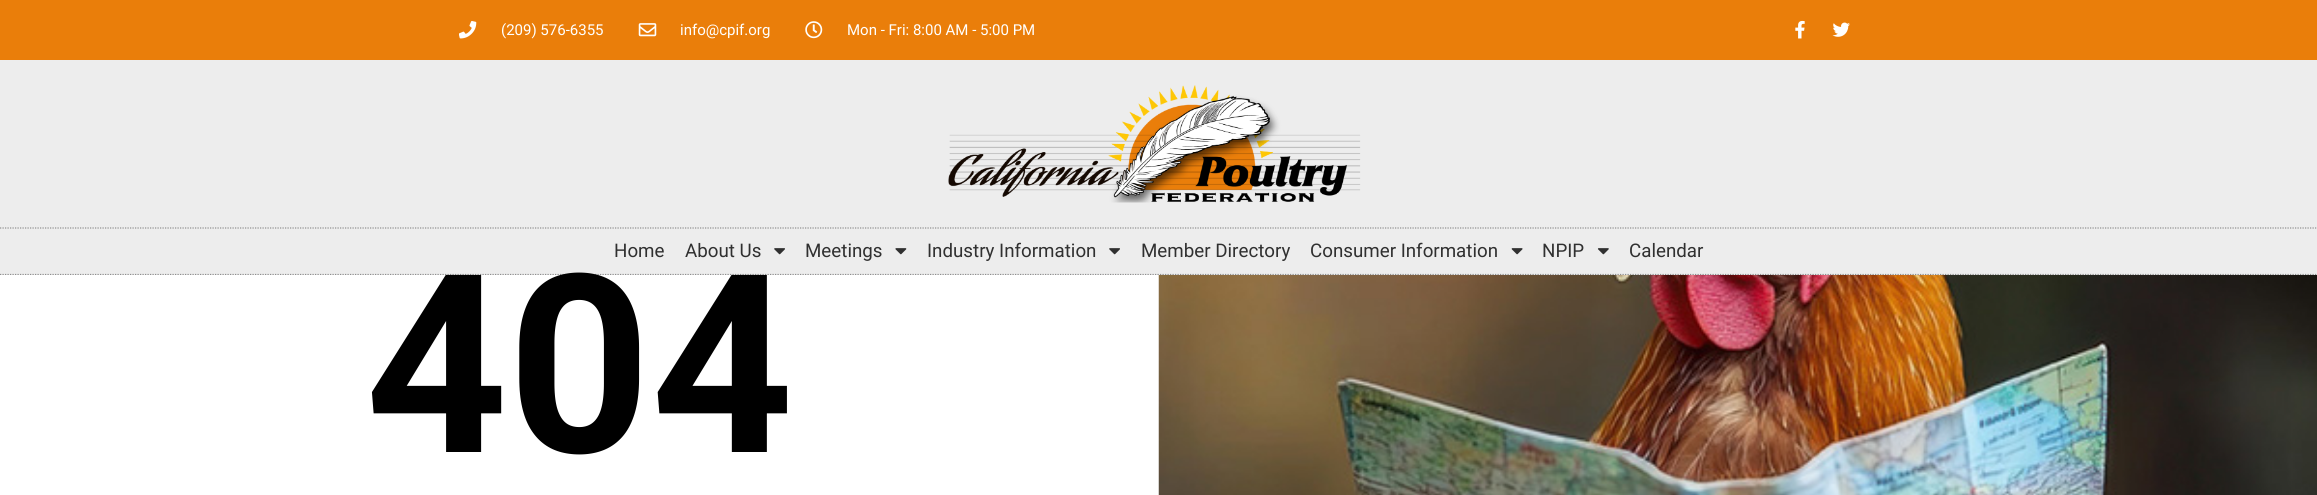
#include <cairo.h>
#include <math.h>
#include <stddef.h>


static void rgb(cairo_t *cr, int r, int g, int b)
{
	cairo_set_source_rgb(cr, r / 255.0, g / 255.0, b / 255.0);
}

static void face(cairo_t *cr, const char *family, double size, int italic, int bold)
{
	cairo_select_font_face(cr, family, italic ? CAIRO_FONT_SLANT_ITALIC : CAIRO_FONT_SLANT_NORMAL,
		bold ? CAIRO_FONT_WEIGHT_BOLD : CAIRO_FONT_WEIGHT_NORMAL);
	cairo_set_font_size(cr, size);
}

static void label(cairo_t *cr, double x, double y, const char *s)
{
	cairo_move_to(cr, x, y);
	cairo_show_text(cr, s);
}

static void rect(cairo_t *cr, double x, double y, double w, double h)
{
	cairo_rectangle(cr, x, y, w, h);
	cairo_fill(cr);
}

static void image(cairo_t *cr, const char *path, double x, double y, double w, double h)
{
	cairo_surface_t *image = cairo_image_surface_create_from_png(path);
	cairo_save(cr);
	cairo_set_source_surface(cr, image, x, y);
	cairo_rectangle(cr, x, y, w, h);
	cairo_fill(cr);
	cairo_restore(cr);
	cairo_surface_destroy(image);
}

static void draw(cairo_t *cr) {
	rgb(cr, 237, 237, 237);
	cairo_paint(cr);
	rgb(cr, 234, 126, 10);
	rect(cr, 0, 0, 2317, 60);
	image(cr, "image0.png", 459, 21, 18, 18);
	face(cr, "Roboto", 15, 0, 0);
	rgb(cr, 255, 255, 255);
	label(cr, 501, 35, "(209) 576-6355");
	image(cr, "image1.png", 638, 23, 19, 14);
	label(cr, 680, 35, "info@cpif.org");
	image(cr, "image2.png", 805, 21, 18, 18);
	label(cr, 847, 35, "Mon - Fri: 8:00 AM - 5:00 PM");
	image(cr, "image3.png", 1795, 20, 10, 19);
	image(cr, "image4.png", 1832, 22, 18, 15);
	image(cr, "image5.png", 948, 85, 413, 118);
	cairo_new_path(cr);
	cairo_move_to(cr, 0, 228);
	cairo_line_to(cr, 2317.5, 228);
	rgb(cr, 142, 142, 142);
	cairo_set_line_width(cr, 1.2);
	cairo_set_dash(cr, (double[]){1.25, 1.25}, 2, 0);
	cairo_stroke(cr);
	cairo_new_path(cr);
	cairo_move_to(cr, 0, 274.5);
	cairo_line_to(cr, 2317.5, 274.5);
	cairo_stroke(cr);
	face(cr, "Roboto", 18.75, 0, 0);
	rgb(cr, 48, 48, 48);
	label(cr, 614, 257, "Home");
	label(cr, 685, 257, "About Us");
	image(cr, "image6.png", 774, 248, 11, 7);
	label(cr, 805, 257, "Meetings");
	image(cr, "image7.png", 895, 248, 12, 7);
	label(cr, 927, 257, "Industry Information");
	image(cr, "image6.png", 1109, 248, 11, 7);
	label(cr, 1141, 257, "Member Directory");
	label(cr, 1310, 257, "Consumer Information");
	image(cr, "image8.png", 1511, 248, 12, 7);
	label(cr, 1542, 257, "NPIP");
	image(cr, "image9.png", 1597, 248, 12, 7);
	label(cr, 1629, 257, "Calendar");
	rgb(cr, 255, 255, 255);
	rect(cr, 0, 275, 1159, 220);
	face(cr, "Roboto", 249, 0, 1);
	rgb(cr, 0, 0, 0);
	label(cr, 365, 452, "404");
	image(cr, "image10.png", 1158, 275, 1159, 220);
}

int main(void) {
	cairo_surface_t *surface = cairo_image_surface_create(CAIRO_FORMAT_RGB24, 2317, 495);
	cairo_t *cr = cairo_create(surface);
	cairo_font_options_t *options = cairo_font_options_create();
	cairo_font_options_set_hint_metrics(options, CAIRO_HINT_METRICS_OFF);
	cairo_font_options_set_hint_style(options, CAIRO_HINT_STYLE_NONE);
	cairo_set_font_options(cr, options);
	cairo_set_miter_limit(cr, 4);
	draw(cr);
	cairo_surface_write_to_png(surface, "render.png");
	cairo_font_options_destroy(options);
	cairo_destroy(cr);
	cairo_surface_destroy(surface);
	return 0;
}
